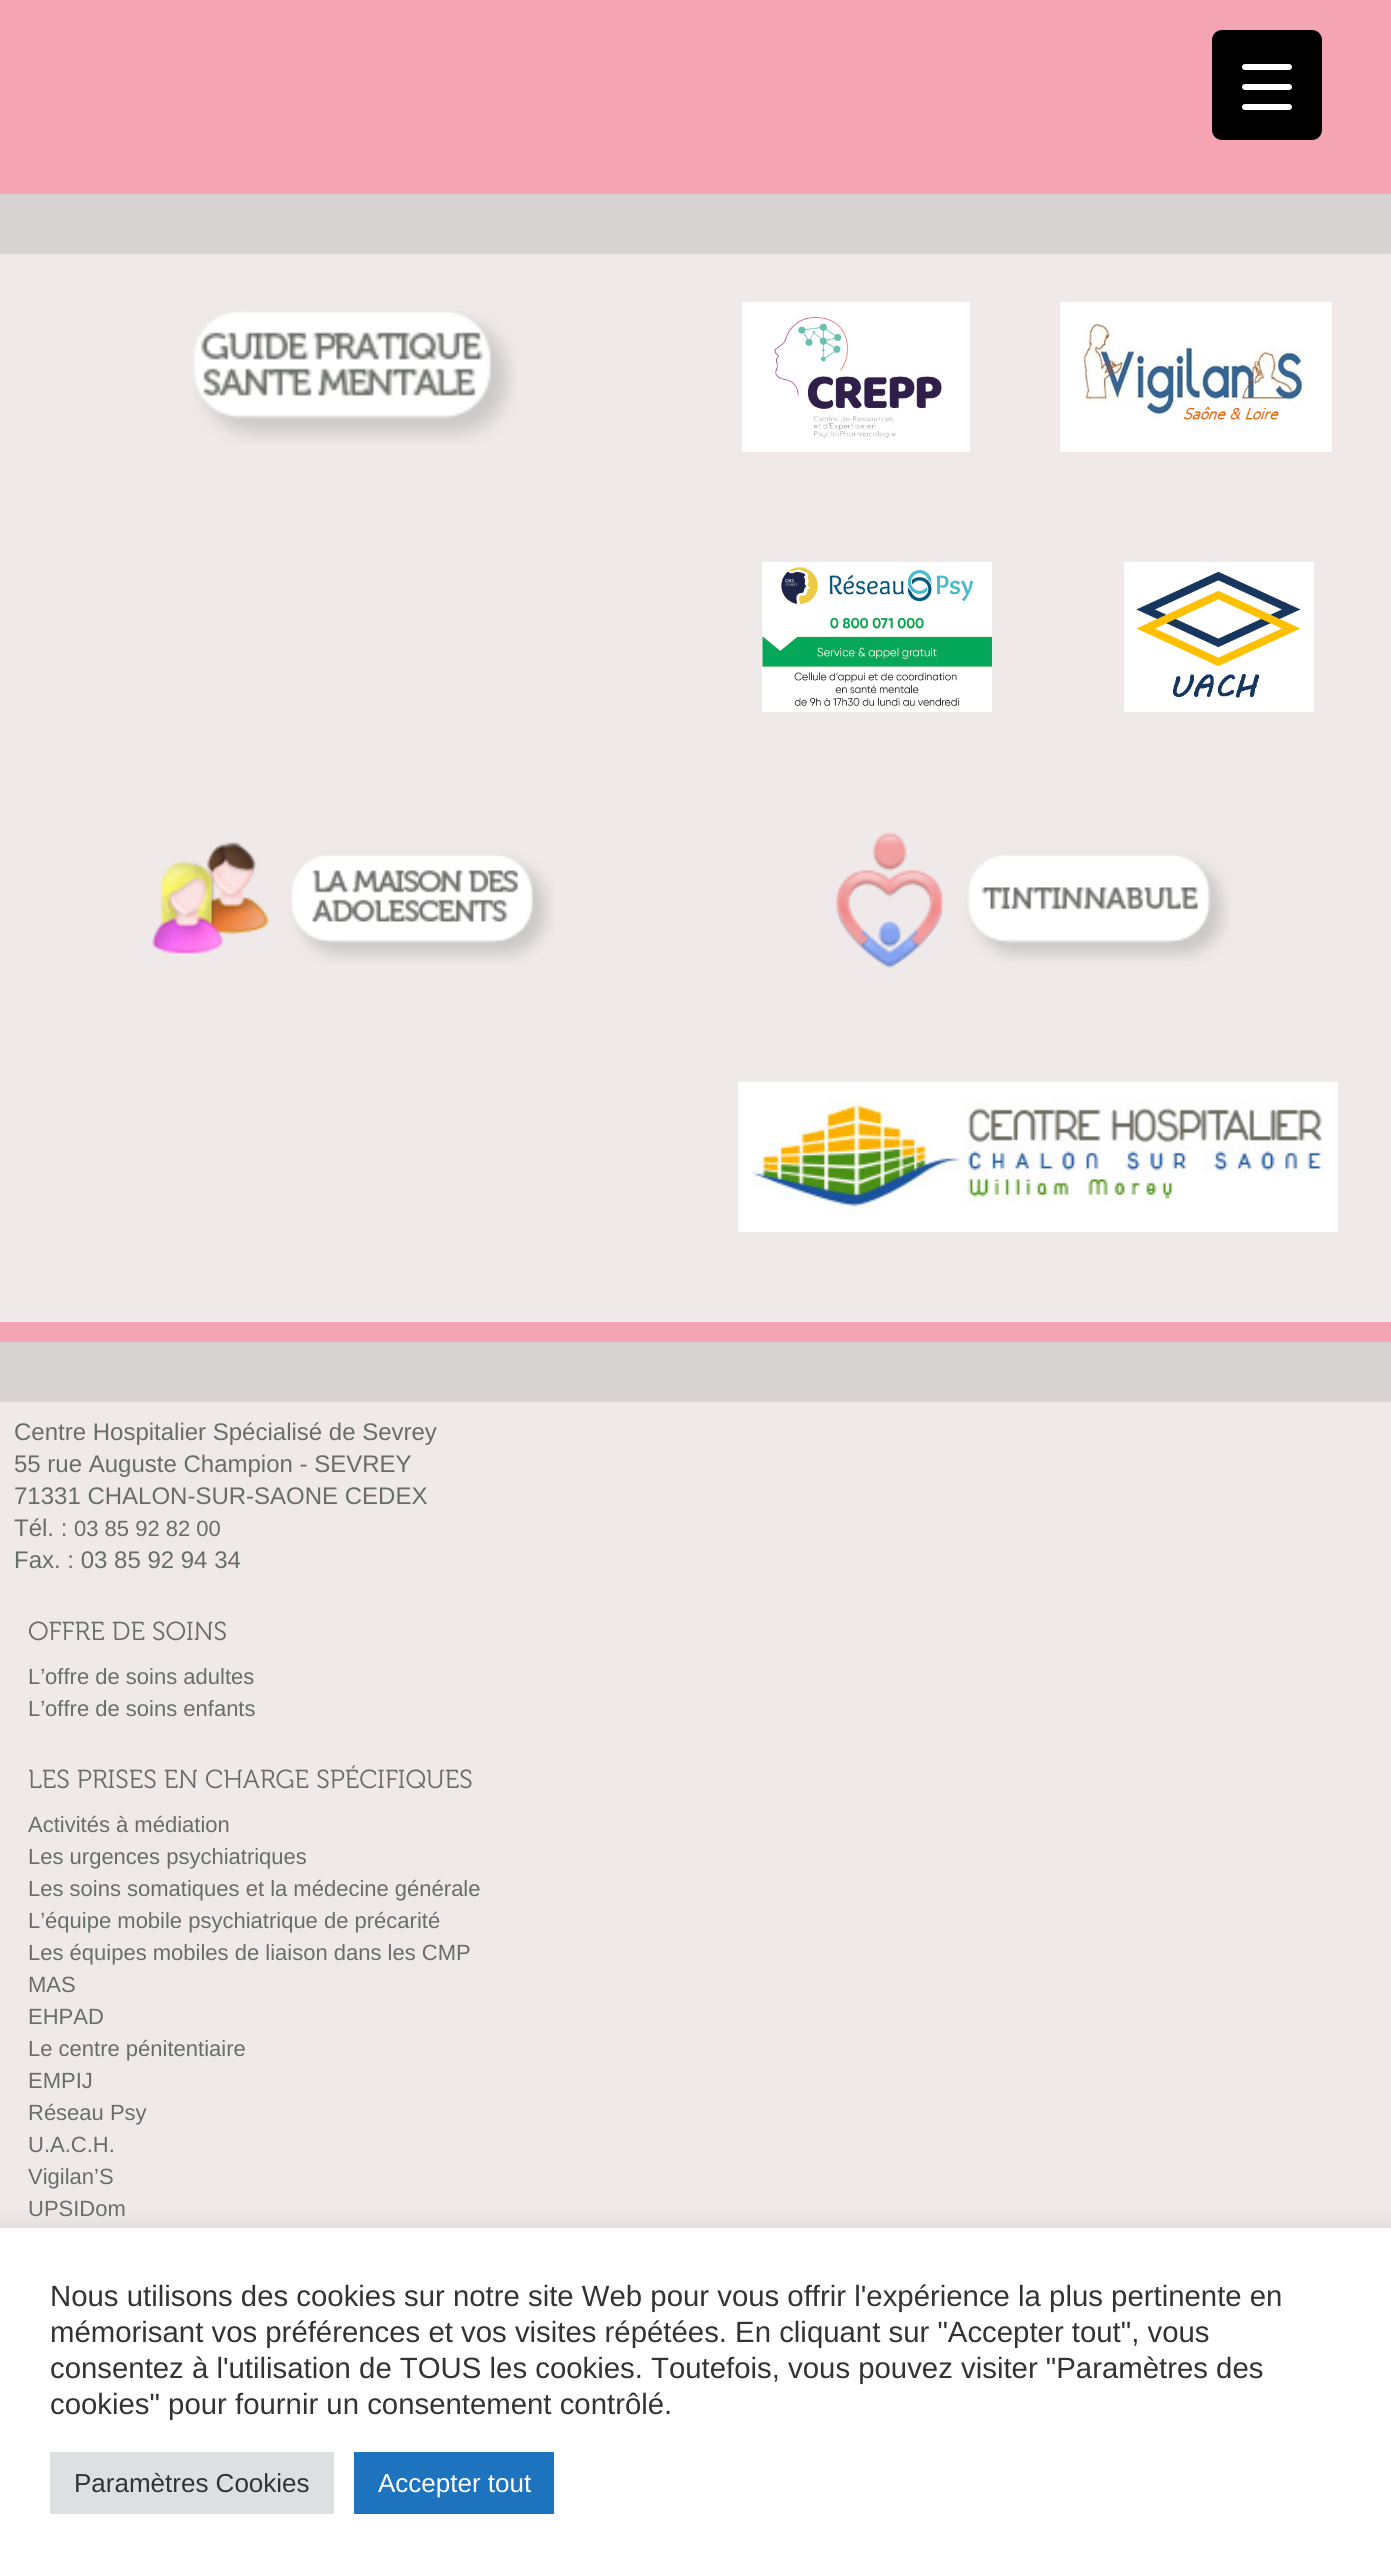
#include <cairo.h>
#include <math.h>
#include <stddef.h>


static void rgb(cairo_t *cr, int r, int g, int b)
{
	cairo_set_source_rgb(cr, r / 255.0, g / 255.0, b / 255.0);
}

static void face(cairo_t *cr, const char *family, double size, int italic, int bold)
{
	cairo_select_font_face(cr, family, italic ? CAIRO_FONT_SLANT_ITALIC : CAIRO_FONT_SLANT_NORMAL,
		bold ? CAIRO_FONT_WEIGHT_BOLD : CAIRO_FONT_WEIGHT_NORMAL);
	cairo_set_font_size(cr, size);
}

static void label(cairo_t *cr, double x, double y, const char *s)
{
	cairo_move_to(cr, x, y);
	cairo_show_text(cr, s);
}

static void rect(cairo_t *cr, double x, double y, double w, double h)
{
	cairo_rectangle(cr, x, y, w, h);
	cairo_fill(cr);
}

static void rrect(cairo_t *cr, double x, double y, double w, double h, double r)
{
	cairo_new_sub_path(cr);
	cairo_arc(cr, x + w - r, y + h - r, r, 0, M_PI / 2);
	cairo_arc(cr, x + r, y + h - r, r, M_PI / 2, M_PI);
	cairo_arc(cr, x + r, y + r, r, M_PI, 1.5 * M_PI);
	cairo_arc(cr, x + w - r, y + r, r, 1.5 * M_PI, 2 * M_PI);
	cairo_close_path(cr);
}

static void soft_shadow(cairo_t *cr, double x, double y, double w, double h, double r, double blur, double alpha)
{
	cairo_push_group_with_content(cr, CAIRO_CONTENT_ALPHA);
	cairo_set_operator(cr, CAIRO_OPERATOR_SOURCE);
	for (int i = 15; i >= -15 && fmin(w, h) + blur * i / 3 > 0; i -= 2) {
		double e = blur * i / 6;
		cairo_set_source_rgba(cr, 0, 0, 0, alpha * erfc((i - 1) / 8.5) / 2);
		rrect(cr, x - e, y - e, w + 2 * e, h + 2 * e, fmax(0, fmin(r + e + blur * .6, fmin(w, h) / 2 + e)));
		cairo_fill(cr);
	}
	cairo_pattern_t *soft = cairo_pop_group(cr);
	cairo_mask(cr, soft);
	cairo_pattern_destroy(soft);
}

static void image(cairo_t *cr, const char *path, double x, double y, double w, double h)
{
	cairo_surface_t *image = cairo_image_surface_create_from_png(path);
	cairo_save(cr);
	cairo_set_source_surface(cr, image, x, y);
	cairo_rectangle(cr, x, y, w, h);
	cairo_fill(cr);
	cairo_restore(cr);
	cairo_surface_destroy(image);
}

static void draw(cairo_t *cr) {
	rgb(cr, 245, 164, 179);
	cairo_paint(cr);
	rgb(cr, 0, 0, 0);
	rrect(cr, 1212, 30, 110, 110, 10);
	cairo_fill(cr);
	rgb(cr, 255, 255, 255);
	rrect(cr, 1242, 84, 50, 6, 3);
	cairo_fill(cr);
	rrect(cr, 1242, 64, 50, 6, 3);
	cairo_fill(cr);
	rrect(cr, 1242, 104, 50, 6, 3);
	cairo_fill(cr);
	rgb(cr, 239, 233, 233);
	rect(cr, 0, 254, 1391, 1068);
	rgb(cr, 216, 211, 211);
	rect(cr, 0, 194, 1391, 60);
	image(cr, "image0.png", 193, 310, 324, 134);
	image(cr, "image1.png", 152, 842, 402, 122);
	image(cr, "image2.png", 742, 302, 228, 150);
	image(cr, "image3.png", 1060, 302, 272, 150);
	image(cr, "image4.png", 762, 562, 230, 150);
	image(cr, "image5.png", 1124, 562, 190, 150);
	image(cr, "image6.png", 836, 831, 395, 138);
	image(cr, "image7.png", 738, 1082, 600, 150);
	rgb(cr, 239, 233, 233);
	rect(cr, 0, 1402, 1391, 826);
	rgb(cr, 216, 211, 211);
	rect(cr, 0, 1342, 1391, 60);
	face(cr, "Liberation Sans", 24, 0, 0);
	rgb(cr, 105, 109, 104);
	label(cr, 14, 1440, "Centre Hospitalier Spécialisé de Sevrey");
	label(cr, 14, 1472, "55 rue Auguste Champion - SEVREY");
	label(cr, 14, 1504, "71331 CHALON-SUR-SAONE CEDEX");
	label(cr, 14, 1536, "Tél. :");
	face(cr, "Liberation Sans", 22, 0, 0);
	label(cr, 74, 1536, "03 85 92 82 00");
	face(cr, "Liberation Sans", 24, 0, 0);
	label(cr, 14, 1568, "Fax. : 03 85 92 94 34");
	face(cr, "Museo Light", 26, 0, 0);
	label(cr, 28, 1640, "OFFRE DE SOINS");
	face(cr, "Liberation Sans", 22, 0, 0);
	label(cr, 28, 1684, "L’offre de soins adultes");
	label(cr, 28, 1716, "L’offre de soins enfants");
	face(cr, "Museo Light", 26, 0, 0);
	label(cr, 28, 1788, "LES PRISES EN CHARGE SPÉCIFIQUES");
	face(cr, "Liberation Sans", 22, 0, 0);
	label(cr, 28, 1832, "Activités à médiation");
	label(cr, 28, 1864, "Les urgences psychiatriques");
	label(cr, 28, 1896, "Les soins somatiques et la médecine générale");
	label(cr, 28, 1928, "L’équipe mobile psychiatrique de précarité");
	label(cr, 28, 1960, "Les équipes mobiles de liaison dans les CMP");
	label(cr, 28, 1992, "MAS");
	label(cr, 28, 2024, "EHPAD");
	label(cr, 28, 2056, "Le centre pénitentiaire");
	label(cr, 28, 2088, "EMPIJ");
	label(cr, 28, 2120, "Réseau Psy");
	label(cr, 28, 2152, "U.A.C.H.");
	label(cr, 28, 2184, "Vigilan’S");
	label(cr, 28, 2216, "UPSIDom");
	rgb(cr, 172, 171, 171);
	soft_shadow(cr, 0, 2226, 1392, 346, 0, 10, 0.3);
	rgb(cr, 255, 255, 255);
	rect(cr, 0, 2228, 1391, 345);
	face(cr, "Liberation Sans", 29.35, 0, 0);
	rgb(cr, 51, 51, 51);
	label(cr, 50, 2306, "Nous utilisons des cookies sur notre site Web pour vous offrir l'expérience la plus pertinente en");
	label(cr, 50, 2342, "mémorisant vos préférences et vos visites répétées. En cliquant sur \"Accepter tout\", vous");
	label(cr, 50, 2378, "consentez à l'utilisation de TOUS les cookies. Toutefois, vous pouvez visiter \"Paramètres des");
	label(cr, 50, 2414, "cookies\" pour fournir un consentement contrôlé.");
	rgb(cr, 222, 223, 224);
	rect(cr, 50, 2452, 284, 62);
	face(cr, "Liberation Sans", 26, 0, 0);
	rgb(cr, 51, 51, 51);
	label(cr, 74, 2492, "Paramètres Cookies");
	rgb(cr, 30, 115, 190);
	rect(cr, 354, 2452, 200, 62);
	rgb(cr, 255, 255, 255);
	label(cr, 378, 2492, "Accepter tout");
}

int main(void) {
	cairo_surface_t *surface = cairo_image_surface_create(CAIRO_FORMAT_RGB24, 1391, 2573);
	cairo_t *cr = cairo_create(surface);
	cairo_font_options_t *options = cairo_font_options_create();
	cairo_font_options_set_hint_metrics(options, CAIRO_HINT_METRICS_OFF);
	cairo_font_options_set_hint_style(options, CAIRO_HINT_STYLE_NONE);
	cairo_set_font_options(cr, options);
	cairo_set_miter_limit(cr, 4);
	draw(cr);
	cairo_surface_write_to_png(surface, "render.png");
	cairo_font_options_destroy(options);
	cairo_destroy(cr);
	cairo_surface_destroy(surface);
	return 0;
}
